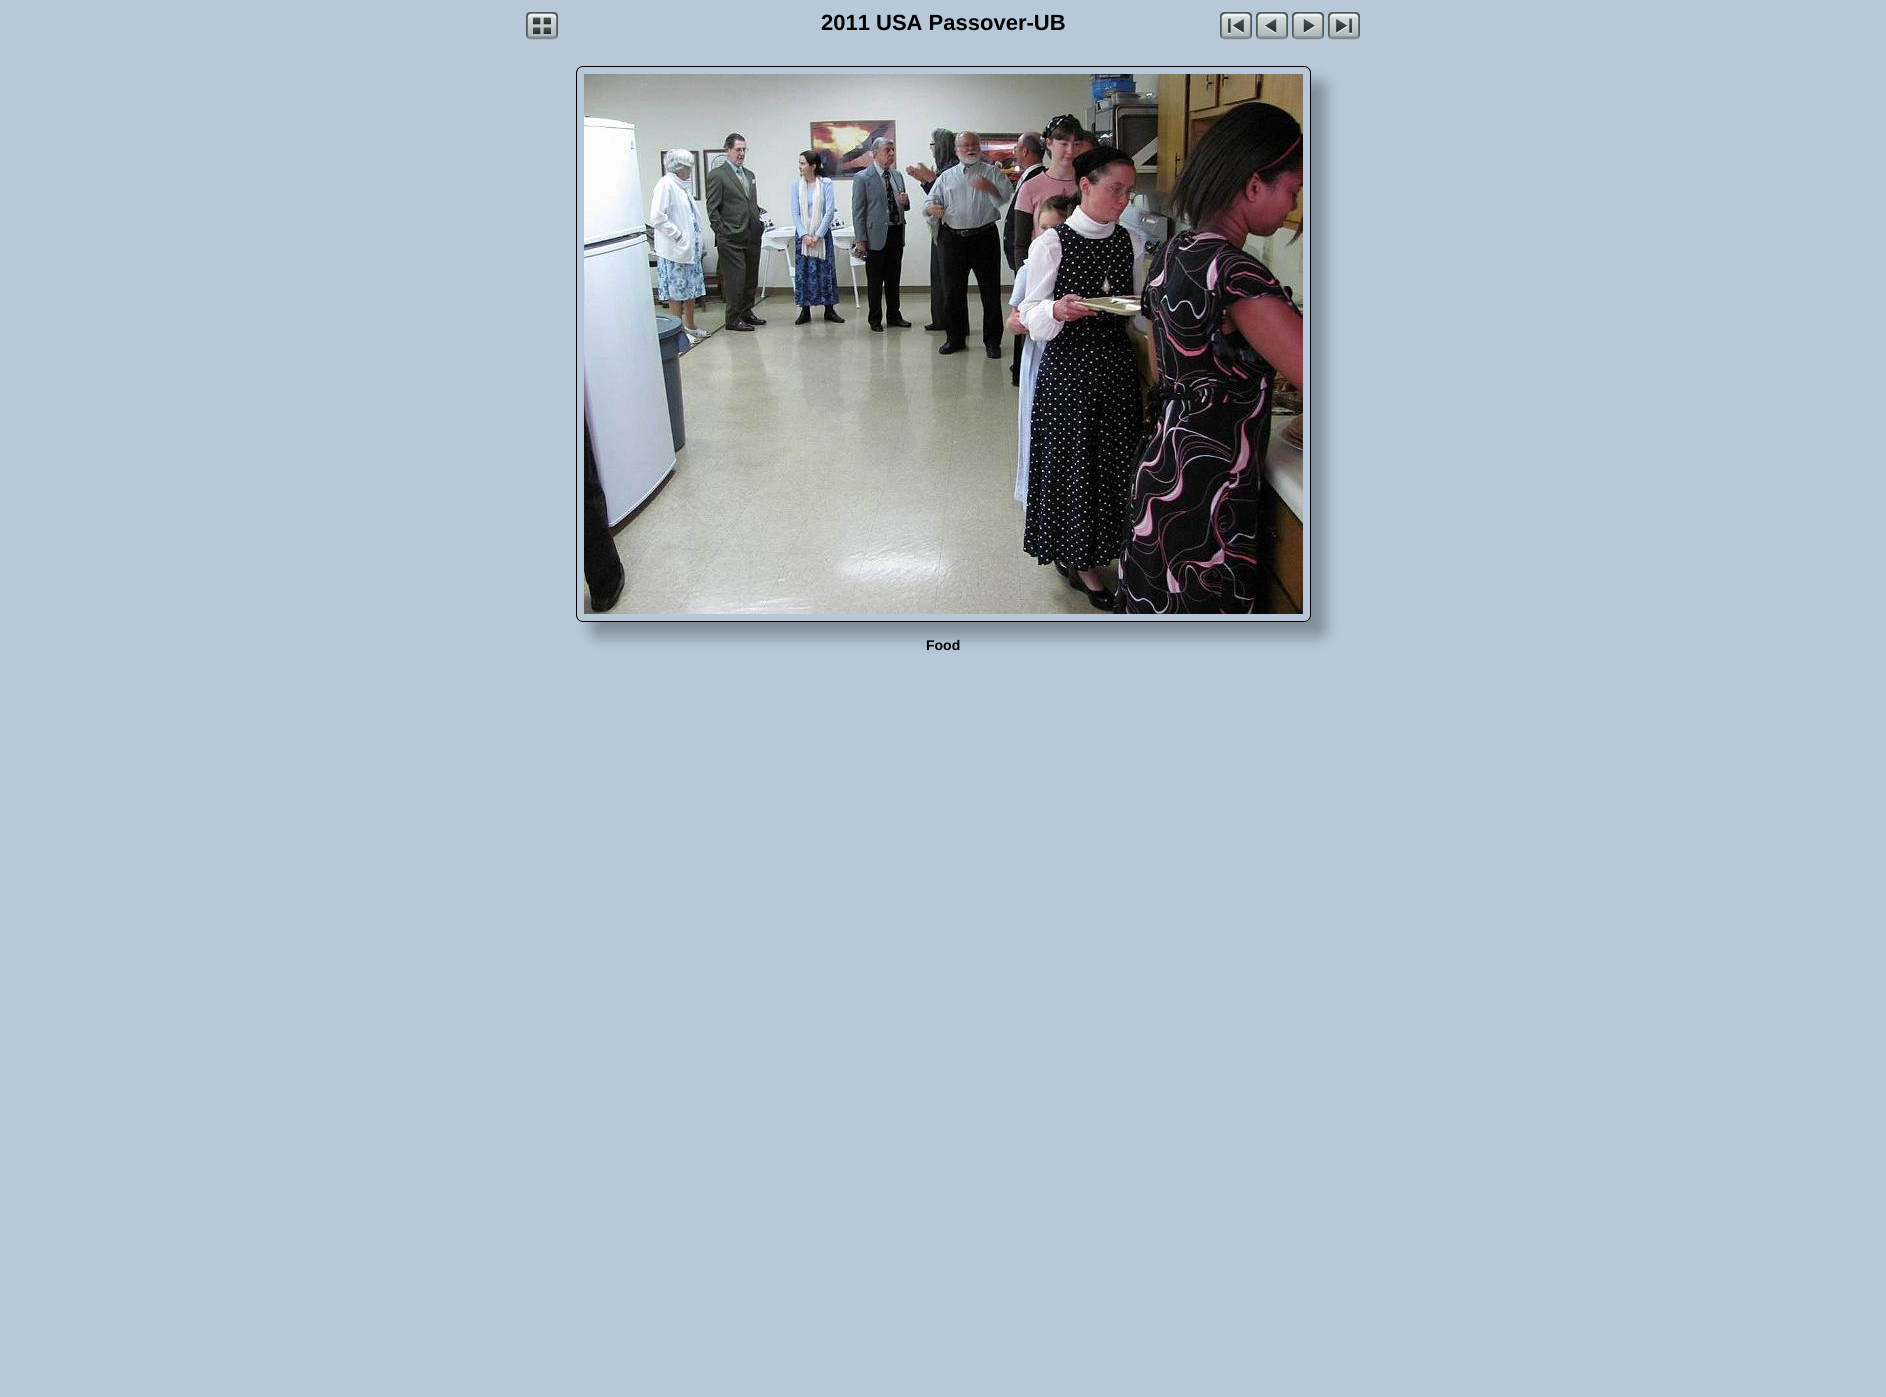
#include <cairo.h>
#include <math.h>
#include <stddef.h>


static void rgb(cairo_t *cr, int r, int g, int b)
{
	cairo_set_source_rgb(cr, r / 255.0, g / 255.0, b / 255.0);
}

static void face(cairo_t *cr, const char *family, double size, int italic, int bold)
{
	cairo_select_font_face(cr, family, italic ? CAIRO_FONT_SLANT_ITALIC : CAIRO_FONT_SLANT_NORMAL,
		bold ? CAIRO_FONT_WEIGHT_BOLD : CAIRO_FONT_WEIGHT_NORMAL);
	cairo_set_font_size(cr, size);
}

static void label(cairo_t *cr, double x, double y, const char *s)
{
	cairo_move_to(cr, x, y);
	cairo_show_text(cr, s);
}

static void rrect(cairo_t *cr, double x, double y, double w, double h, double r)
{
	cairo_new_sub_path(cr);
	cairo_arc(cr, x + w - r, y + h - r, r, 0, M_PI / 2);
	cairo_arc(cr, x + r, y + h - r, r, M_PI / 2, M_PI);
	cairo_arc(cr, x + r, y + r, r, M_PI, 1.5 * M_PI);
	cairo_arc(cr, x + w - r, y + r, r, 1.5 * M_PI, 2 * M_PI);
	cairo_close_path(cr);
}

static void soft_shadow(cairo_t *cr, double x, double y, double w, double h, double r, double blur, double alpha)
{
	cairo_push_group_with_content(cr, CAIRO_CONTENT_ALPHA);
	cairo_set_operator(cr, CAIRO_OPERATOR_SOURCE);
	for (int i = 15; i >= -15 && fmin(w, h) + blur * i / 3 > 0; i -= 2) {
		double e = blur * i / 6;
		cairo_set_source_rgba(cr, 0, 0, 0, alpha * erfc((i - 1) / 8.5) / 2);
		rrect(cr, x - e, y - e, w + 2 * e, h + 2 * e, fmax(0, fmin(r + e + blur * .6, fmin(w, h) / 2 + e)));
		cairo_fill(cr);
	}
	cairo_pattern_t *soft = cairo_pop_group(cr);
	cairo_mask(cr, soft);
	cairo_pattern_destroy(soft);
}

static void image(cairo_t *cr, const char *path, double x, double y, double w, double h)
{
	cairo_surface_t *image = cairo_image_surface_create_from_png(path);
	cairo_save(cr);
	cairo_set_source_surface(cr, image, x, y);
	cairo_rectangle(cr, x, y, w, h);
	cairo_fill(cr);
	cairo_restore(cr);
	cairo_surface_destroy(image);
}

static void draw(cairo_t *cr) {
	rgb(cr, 183, 201, 216);
	cairo_paint(cr);
	image(cr, "image0.png", 526, 12, 32, 28);
	face(cr, "Liberation Sans", 22, 0, 1);
	rgb(cr, 0, 0, 0);
	label(cr, 821, 30, "2011 USA Passover-UB");
	image(cr, "image1.png", 1220, 12, 32, 28);
	image(cr, "image2.png", 1256, 12, 32, 28);
	image(cr, "image3.png", 1292, 12, 32, 28);
	image(cr, "image4.png", 1328, 12, 32, 28);
	cairo_save(cr);
	cairo_set_fill_rule(cr, CAIRO_FILL_RULE_EVEN_ODD);
	cairo_new_path(cr);
	cairo_move_to(cr, 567, 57);
	cairo_line_to(cr, 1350, 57);
	cairo_line_to(cr, 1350, 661);
	cairo_line_to(cr, 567, 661);
	cairo_close_path(cr);
	cairo_move_to(cr, 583, 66);
	cairo_line_to(cr, 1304, 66);
	cairo_curve_to(cr, 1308, 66, 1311, 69, 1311, 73);
	cairo_line_to(cr, 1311, 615);
	cairo_curve_to(cr, 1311, 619, 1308, 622, 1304, 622);
	cairo_line_to(cr, 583, 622);
	cairo_curve_to(cr, 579, 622, 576, 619, 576, 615);
	cairo_line_to(cr, 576, 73);
	cairo_curve_to(cr, 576, 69, 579, 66, 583, 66);
	cairo_close_path(cr);
	cairo_clip(cr);
	rgb(cr, 0, 0, 0);
	soft_shadow(cr, 591, 81, 735, 556, 7, 7.5, 0.3);
	cairo_restore(cr);
	rrect(cr, 576.5, 66.5, 734, 555, 6.5);
	cairo_set_line_width(cr, 1);
	cairo_stroke(cr);
	image(cr, "image5.png", 584, 74, 719, 540);
	face(cr, "Liberation Sans", 14, 0, 1);
	label(cr, 926, 650, "Food");
}

int main(void) {
	cairo_surface_t *surface = cairo_image_surface_create(CAIRO_FORMAT_RGB24, 1886, 1397);
	cairo_t *cr = cairo_create(surface);
	cairo_font_options_t *options = cairo_font_options_create();
	cairo_font_options_set_hint_metrics(options, CAIRO_HINT_METRICS_OFF);
	cairo_font_options_set_hint_style(options, CAIRO_HINT_STYLE_NONE);
	cairo_set_font_options(cr, options);
	cairo_set_miter_limit(cr, 4);
	draw(cr);
	cairo_surface_write_to_png(surface, "render.png");
	cairo_font_options_destroy(options);
	cairo_destroy(cr);
	cairo_surface_destroy(surface);
	return 0;
}
